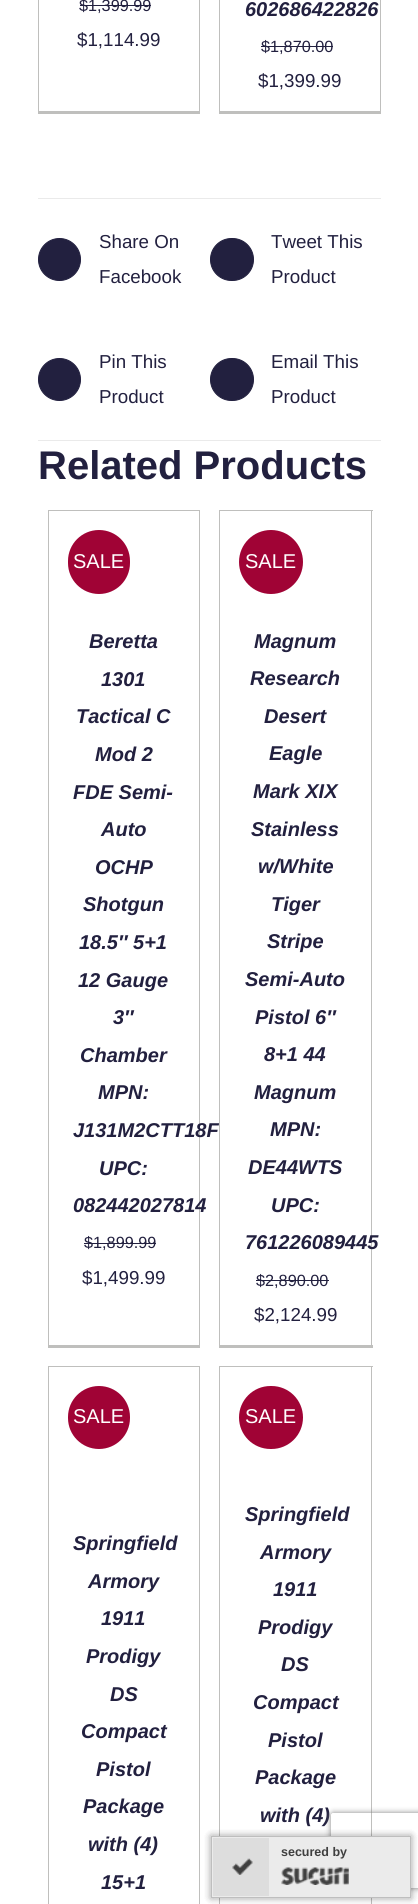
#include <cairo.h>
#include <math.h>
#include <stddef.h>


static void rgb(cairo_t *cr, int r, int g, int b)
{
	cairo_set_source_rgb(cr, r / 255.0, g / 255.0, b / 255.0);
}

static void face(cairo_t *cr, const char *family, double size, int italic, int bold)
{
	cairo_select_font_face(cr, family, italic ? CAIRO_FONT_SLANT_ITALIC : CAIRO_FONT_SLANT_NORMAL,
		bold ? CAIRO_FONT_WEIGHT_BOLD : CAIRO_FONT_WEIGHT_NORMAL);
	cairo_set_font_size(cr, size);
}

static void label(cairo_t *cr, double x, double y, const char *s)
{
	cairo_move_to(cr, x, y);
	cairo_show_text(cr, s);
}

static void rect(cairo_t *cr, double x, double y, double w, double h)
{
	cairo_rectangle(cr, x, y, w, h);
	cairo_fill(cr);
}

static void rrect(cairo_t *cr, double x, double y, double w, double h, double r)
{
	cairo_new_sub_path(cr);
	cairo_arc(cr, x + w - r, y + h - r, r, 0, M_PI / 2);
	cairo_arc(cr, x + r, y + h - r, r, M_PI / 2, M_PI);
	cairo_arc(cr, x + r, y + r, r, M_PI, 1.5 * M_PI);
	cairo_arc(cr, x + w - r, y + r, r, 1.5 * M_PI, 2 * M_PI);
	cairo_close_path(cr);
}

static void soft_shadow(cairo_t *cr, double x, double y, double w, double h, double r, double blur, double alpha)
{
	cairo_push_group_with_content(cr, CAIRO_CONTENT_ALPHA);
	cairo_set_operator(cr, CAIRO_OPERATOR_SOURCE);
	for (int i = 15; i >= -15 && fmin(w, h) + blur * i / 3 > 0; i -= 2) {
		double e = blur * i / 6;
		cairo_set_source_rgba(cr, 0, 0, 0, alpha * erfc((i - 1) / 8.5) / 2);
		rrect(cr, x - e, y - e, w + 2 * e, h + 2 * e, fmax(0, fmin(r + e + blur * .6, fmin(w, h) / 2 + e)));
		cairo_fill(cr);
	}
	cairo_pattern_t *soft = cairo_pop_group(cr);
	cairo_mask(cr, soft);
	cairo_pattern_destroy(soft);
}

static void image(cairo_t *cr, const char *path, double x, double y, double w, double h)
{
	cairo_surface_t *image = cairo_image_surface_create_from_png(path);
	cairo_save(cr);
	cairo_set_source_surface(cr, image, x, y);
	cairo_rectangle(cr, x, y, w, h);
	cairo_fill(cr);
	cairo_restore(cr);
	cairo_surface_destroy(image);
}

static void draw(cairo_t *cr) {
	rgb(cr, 255, 255, 255);
	cairo_paint(cr);
	rgb(cr, 191, 191, 189);
	rect(cr, 199, 0, 1, 114);
	rect(cr, 38, 111, 162, 3);
	rect(cr, 38, 0, 1, 114);
	face(cr, "Liberation Sans", 16.25, 0, 0);
	rgb(cr, 34, 32, 63);
	label(cr, 79, 11, "$1,399.99");
	rect(cr, 80, 5, 71, 1);
	face(cr, "Liberation Sans", 18.75, 0, 0);
	label(cr, 77, 46, "$1,114.99");
	rgb(cr, 191, 191, 189);
	rect(cr, 380, 0, 1, 114);
	rect(cr, 219, 111, 162, 3);
	rect(cr, 219, 0, 1, 114);
	face(cr, "Liberation Sans", 20, 1, 1);
	rgb(cr, 34, 32, 63);
	label(cr, 245, 16, "602686422826");
	face(cr, "Liberation Sans", 16.25, 0, 0);
	label(cr, 261, 52, "$1,870.00");
	rect(cr, 261, 46, 72, 1);
	face(cr, "Liberation Sans", 18.75, 0, 0);
	label(cr, 258, 87, "$1,399.99");
	rgb(cr, 234, 234, 234);
	rect(cr, 38, 198, 343, 1);
	rect(cr, 38, 440, 343, 1);
	rgb(cr, 34, 32, 63);
	cairo_new_path(cr);
	cairo_arc(cr, 59.5, 259.5, 21, 0, 2 * M_PI);
	cairo_fill_preserve(cr);
	cairo_set_line_width(cr, 1);
	cairo_stroke(cr);
	label(cr, 99, 248, "Share On");
	label(cr, 99, 283, "Facebook");
	rrect(cr, 210.5, 238.5, 43, 42, 21);
	cairo_fill_preserve(cr);
	cairo_stroke(cr);
	label(cr, 271, 248, "Tweet This");
	label(cr, 271, 283, "Product");
	cairo_new_path(cr);
	cairo_arc(cr, 59.5, 379.5, 21, 0, 2 * M_PI);
	cairo_fill_preserve(cr);
	cairo_stroke(cr);
	label(cr, 99, 368, "Pin This");
	label(cr, 99, 403, "Product");
	rrect(cr, 210.5, 358.5, 43, 42, 21);
	cairo_fill_preserve(cr);
	cairo_stroke(cr);
	label(cr, 271, 368, "Email This");
	label(cr, 271, 403, "Product");
	face(cr, "Liberation Sans", 40, 0, 1);
	label(cr, 38, 479, "Related Products");
	rgb(cr, 191, 191, 189);
	rect(cr, 48, 510, 152, 1);
	rect(cr, 199, 510, 1, 838);
	rect(cr, 48, 1345, 152, 3);
	rect(cr, 48, 510, 1, 838);
	rgb(cr, 160, 3, 53);
	rrect(cr, 68, 530, 62, 64, 31);
	cairo_fill(cr);
	face(cr, "Liberation Sans", 20, 0, 0);
	rgb(cr, 255, 255, 255);
	label(cr, 73, 568, "SALE");
	face(cr, "Liberation Sans", 20, 1, 1);
	rgb(cr, 34, 32, 63);
	label(cr, 89, 648, "Beretta");
	label(cr, 101, 686, "1301");
	label(cr, 76, 723, "Tactical C");
	label(cr, 95, 761, "Mod 2");
	label(cr, 73, 799, "FDE Semi-");
	label(cr, 101, 836, "Auto");
	label(cr, 95, 874, "OCHP");
	label(cr, 83, 911, "Shotgun");
	label(cr, 79, 949, "18.5″ 5+1");
	label(cr, 78, 987, "12 Gauge");
	label(cr, 113, 1024, "3″");
	label(cr, 80, 1062, "Chamber");
	label(cr, 98, 1099, "MPN:");
	label(cr, 73, 1137, "J131M2CTT18F");
	label(cr, 99, 1175, "UPC:");
	label(cr, 73, 1212, "082442027814");
	face(cr, "Liberation Sans", 16.25, 0, 0);
	label(cr, 84, 1248, "$1,899.99");
	rect(cr, 84, 1243, 72, 1);
	face(cr, "Liberation Sans", 18.75, 0, 0);
	label(cr, 82, 1284, "$1,499.99");
	rgb(cr, 191, 191, 189);
	rect(cr, 219, 510, 154, 1);
	rect(cr, 371, 510, 1, 838);
	rect(cr, 219, 1345, 154, 3);
	rect(cr, 219, 510, 1, 838);
	rgb(cr, 160, 3, 53);
	cairo_new_path(cr);
	cairo_arc(cr, 271, 562, 32, 0, 2 * M_PI);
	cairo_fill(cr);
	face(cr, "Liberation Sans", 20, 0, 0);
	rgb(cr, 255, 255, 255);
	label(cr, 245, 568, "SALE");
	face(cr, "Liberation Sans", 20, 1, 1);
	rgb(cr, 34, 32, 63);
	label(cr, 254, 648, "Magnum");
	label(cr, 250, 685, "Research");
	label(cr, 264, 723, "Desert");
	label(cr, 269, 760, "Eagle");
	label(cr, 253, 798, "Mark XIX");
	label(cr, 251, 836, "Stainless");
	label(cr, 258, 873, "w/White");
	label(cr, 271, 911, "Tiger");
	label(cr, 267, 948, "Stripe");
	label(cr, 245, 986, "Semi-Auto");
	label(cr, 255, 1024, "Pistol 6″");
	label(cr, 264, 1061, "8+1 44");
	label(cr, 254, 1099, "Magnum");
	label(cr, 270, 1136, "MPN:");
	label(cr, 248, 1174, "DE44WTS");
	label(cr, 271, 1212, "UPC:");
	label(cr, 245, 1249, "761226089445");
	face(cr, "Liberation Sans", 16.25, 0, 0);
	label(cr, 256, 1286, "$2,890.00");
	rect(cr, 256, 1280, 73, 1);
	face(cr, "Liberation Sans", 18.75, 0, 0);
	label(cr, 254, 1321, "$2,124.99");
	rgb(cr, 191, 191, 189);
	rect(cr, 48, 1366, 152, 1);
	rect(cr, 199, 1366, 1, 538);
	rect(cr, 48, 1366, 1, 538);
	rgb(cr, 160, 3, 53);
	rrect(cr, 68, 1386, 62, 63, 31);
	cairo_fill(cr);
	face(cr, "Liberation Sans", 20, 0, 0);
	rgb(cr, 255, 255, 255);
	label(cr, 73, 1423, "SALE");
	face(cr, "Liberation Sans", 20, 1, 1);
	rgb(cr, 34, 32, 63);
	label(cr, 73, 1550, "Springfield");
	label(cr, 88, 1588, "Armory");
	label(cr, 101, 1625, "1911");
	label(cr, 86, 1663, "Prodigy");
	label(cr, 110, 1701, "DS");
	label(cr, 81, 1738, "Compact");
	label(cr, 96, 1776, "Pistol");
	label(cr, 83, 1813, "Package");
	label(cr, 88, 1851, "with (4)");
	label(cr, 101, 1889, "15+1");
	rgb(cr, 191, 191, 189);
	rect(cr, 219, 1366, 154, 1);
	rect(cr, 371, 1366, 1, 538);
	rect(cr, 219, 1366, 1, 538);
	rgb(cr, 160, 3, 53);
	rrect(cr, 239, 1386, 64, 63, 31.5);
	cairo_fill(cr);
	face(cr, "Liberation Sans", 20, 0, 0);
	rgb(cr, 255, 255, 255);
	label(cr, 245, 1423, "SALE");
	face(cr, "Liberation Sans", 20, 1, 1);
	rgb(cr, 34, 32, 63);
	label(cr, 245, 1521, "Springfield");
	label(cr, 260, 1559, "Armory");
	label(cr, 273, 1596, "1911");
	label(cr, 258, 1634, "Prodigy");
	label(cr, 281, 1671, "DS");
	label(cr, 253, 1709, "Compact");
	label(cr, 268, 1747, "Pistol");
	label(cr, 255, 1784, "Package");
	label(cr, 260, 1822, "with (4)");
	cairo_save(cr);
	cairo_set_fill_rule(cr, CAIRO_FILL_RULE_EVEN_ODD);
	cairo_new_path(cr);
	cairo_move_to(cr, 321, 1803);
	cairo_line_to(cr, 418, 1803);
	cairo_line_to(cr, 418, 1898);
	cairo_line_to(cr, 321, 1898);
	cairo_close_path(cr);
	cairo_move_to(cr, 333.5, 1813);
	cairo_line_to(cr, 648.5, 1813);
	cairo_curve_to(cr, 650, 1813, 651, 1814, 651, 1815.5);
	cairo_line_to(cr, 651, 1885.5);
	cairo_curve_to(cr, 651, 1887, 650, 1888, 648.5, 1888);
	cairo_line_to(cr, 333.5, 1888);
	cairo_curve_to(cr, 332, 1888, 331, 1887, 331, 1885.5);
	cairo_line_to(cr, 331, 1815.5);
	cairo_curve_to(cr, 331, 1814, 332, 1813, 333.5, 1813);
	cairo_close_path(cr);
	cairo_clip(cr);
	rgb(cr, 128, 128, 128);
	soft_shadow(cr, 331, 1813, 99, 75, 2.5, 3, 1);
	cairo_restore(cr);
	rgb(cr, 0, 0, 0);
	soft_shadow(cr, 211, 1836, 200, 62, 0, 4, 0.14);
	soft_shadow(cr, 211, 1836, 200, 62, 0, 4, 0.14);
	soft_shadow(cr, 211, 1836, 200, 62, 0, 4, 0.14);
	rgb(cr, 235, 235, 235);
	cairo_rectangle(cr, 211.5, 1836.5, 199, 61);
	cairo_fill_preserve(cr);
	rgb(cr, 190, 190, 190);
	cairo_stroke(cr);
	rgb(cr, 221, 221, 221);
	rect(cr, 213, 1838, 56, 58);
	image(cr, "image0.png", 232, 1858, 21, 17);
	face(cr, "Liberation Sans", 12.5, 0, 1);
	rgb(cr, 63, 63, 63);
	label(cr, 281, 1856, "secured by");
	image(cr, "image1.png", 281, 1867, 68, 18);
}

int main(void) {
	cairo_surface_t *surface = cairo_image_surface_create(CAIRO_FORMAT_RGB24, 418, 1904);
	cairo_t *cr = cairo_create(surface);
	cairo_font_options_t *options = cairo_font_options_create();
	cairo_font_options_set_hint_metrics(options, CAIRO_HINT_METRICS_OFF);
	cairo_font_options_set_hint_style(options, CAIRO_HINT_STYLE_NONE);
	cairo_set_font_options(cr, options);
	cairo_set_miter_limit(cr, 4);
	draw(cr);
	cairo_surface_write_to_png(surface, "render.png");
	cairo_font_options_destroy(options);
	cairo_destroy(cr);
	cairo_surface_destroy(surface);
	return 0;
}
